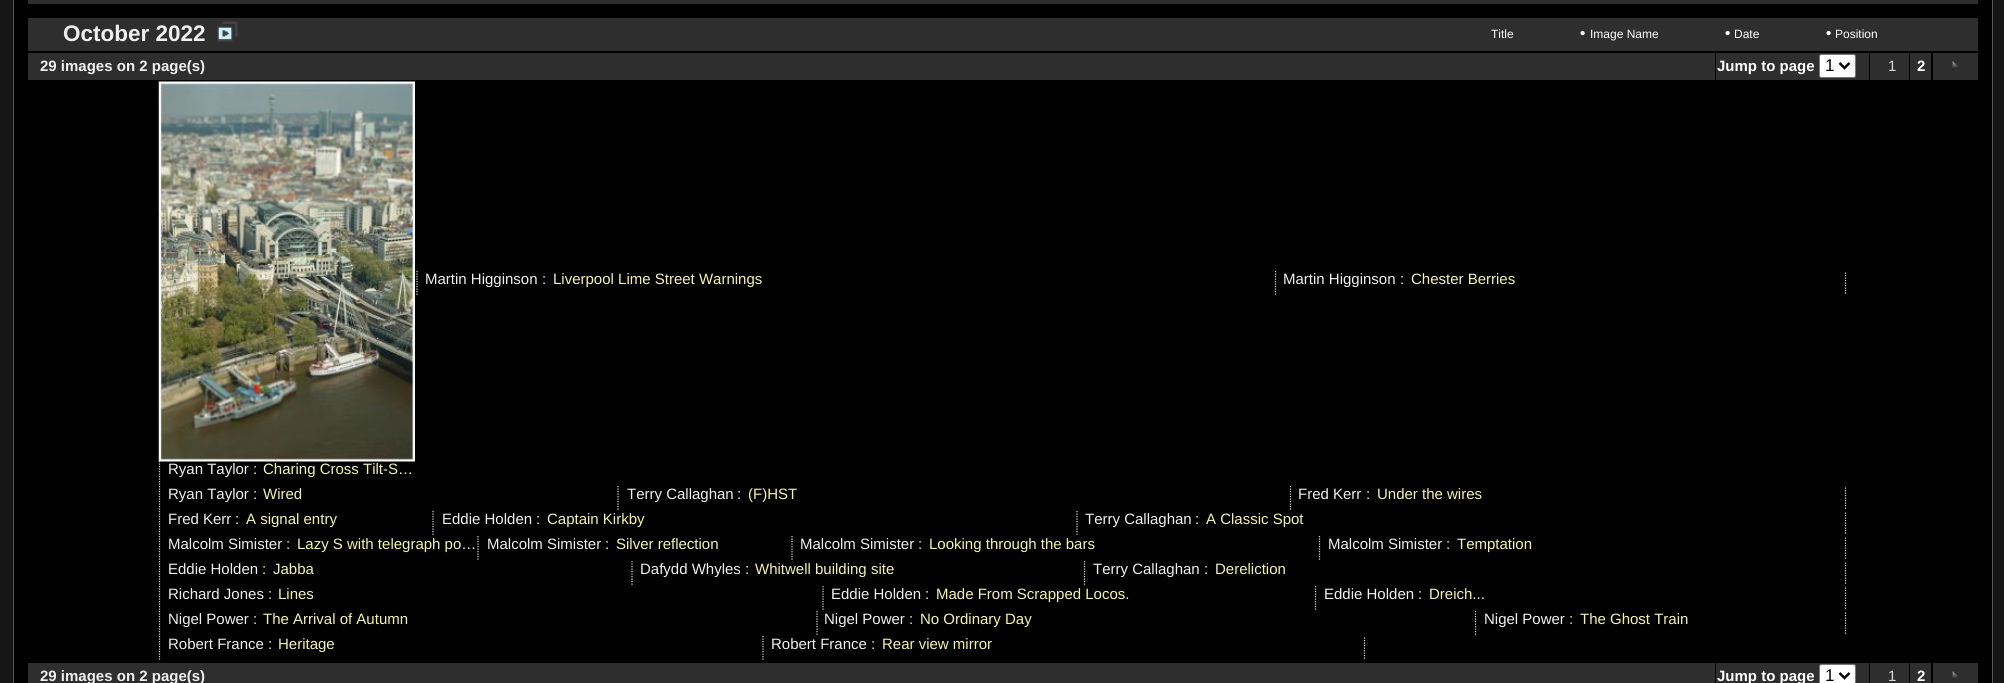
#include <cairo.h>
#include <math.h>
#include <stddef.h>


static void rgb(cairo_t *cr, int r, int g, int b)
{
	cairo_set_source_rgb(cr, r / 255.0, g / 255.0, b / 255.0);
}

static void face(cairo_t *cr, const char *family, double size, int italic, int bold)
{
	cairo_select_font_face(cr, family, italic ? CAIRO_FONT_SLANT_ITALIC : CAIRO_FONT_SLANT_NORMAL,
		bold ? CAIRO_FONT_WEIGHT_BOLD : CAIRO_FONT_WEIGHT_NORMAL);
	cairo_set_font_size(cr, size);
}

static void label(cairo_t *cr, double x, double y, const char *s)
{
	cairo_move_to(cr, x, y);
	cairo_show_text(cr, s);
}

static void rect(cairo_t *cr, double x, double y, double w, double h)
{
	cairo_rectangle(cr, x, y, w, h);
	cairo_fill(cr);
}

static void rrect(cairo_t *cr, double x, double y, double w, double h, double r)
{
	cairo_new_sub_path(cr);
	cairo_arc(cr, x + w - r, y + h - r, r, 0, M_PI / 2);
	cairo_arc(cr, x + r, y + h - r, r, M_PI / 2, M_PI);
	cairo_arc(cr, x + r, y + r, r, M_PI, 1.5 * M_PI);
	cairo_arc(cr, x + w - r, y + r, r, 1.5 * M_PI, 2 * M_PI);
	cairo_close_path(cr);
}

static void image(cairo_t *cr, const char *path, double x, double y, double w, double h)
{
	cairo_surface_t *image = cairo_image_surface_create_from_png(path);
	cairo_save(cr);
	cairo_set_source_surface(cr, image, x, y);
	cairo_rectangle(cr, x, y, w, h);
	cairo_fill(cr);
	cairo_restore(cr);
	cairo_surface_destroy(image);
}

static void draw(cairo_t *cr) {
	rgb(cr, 21, 21, 21);
	cairo_paint(cr);
	rgb(cr, 0, 0, 0);
	cairo_rectangle(cr, 13.5, -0.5, 1979, 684);
	cairo_fill_preserve(cr);
	rgb(cr, 88, 88, 88);
	cairo_set_line_width(cr, 1);
	cairo_stroke(cr);
	rgb(cr, 46, 46, 46);
	rect(cr, 28, 0, 1950, 4);
	rect(cr, 28, 18, 1950, 33);
	face(cr, "Liberation Sans", 22.5, 0, 1);
	rgb(cr, 239, 239, 239);
	label(cr, 63, 41, "October 2022");
	image(cr, "image0.png", 217, 21, 21, 21);
	face(cr, "Liberation Sans", 12, 0, 0);
	rgb(cr, 255, 255, 255);
	label(cr, 1491, 38, "Title");
	face(cr, "Liberation Sans", 15, 0, 1);
	label(cr, 1580, 38, "•");
	face(cr, "Liberation Sans", 12, 0, 0);
	label(cr, 1590, 38, "Image Name");
	face(cr, "Liberation Sans", 15, 0, 1);
	label(cr, 1725, 38, "•");
	face(cr, "Liberation Sans", 12, 0, 0);
	label(cr, 1734, 38, "Date");
	face(cr, "Liberation Sans", 15, 0, 1);
	label(cr, 1826, 38, "•");
	face(cr, "Liberation Sans", 12, 0, 0);
	label(cr, 1835, 38, "Position");
	rgb(cr, 46, 46, 46);
	rect(cr, 28, 53, 1687, 27);
	face(cr, "Liberation Sans", 15, 0, 1);
	rgb(cr, 239, 239, 239);
	label(cr, 40, 71, "29 images on 2 page(s)");
	rgb(cr, 46, 46, 46);
	rect(cr, 1716, 53, 153, 27);
	rgb(cr, 255, 255, 255);
	label(cr, 1717, 71, "Jump to page");
	rrect(cr, 1819.5, 54.5, 36, 23, 2);
	cairo_fill_preserve(cr);
	rgb(cr, 118, 118, 118);
	cairo_stroke(cr);
	cairo_new_path(cr);
	cairo_move_to(cr, 1839.5, 63);
	cairo_line_to(cr, 1844.5, 68);
	cairo_line_to(cr, 1849.5, 63);
	rgb(cr, 0, 0, 0);
	cairo_set_line_width(cr, 2.5);
	cairo_stroke(cr);
	face(cr, "Liberation Sans", 17, 0, 0);
	label(cr, 1825, 71, "1");
	rgb(cr, 46, 46, 46);
	rect(cr, 1870, 53, 39, 27);
	face(cr, "Liberation Sans", 15, 0, 0);
	rgb(cr, 216, 216, 216);
	label(cr, 1888, 71, "1");
	rgb(cr, 46, 46, 46);
	rect(cr, 1910, 53, 21, 27);
	face(cr, "Liberation Sans", 15, 0, 1);
	rgb(cr, 255, 255, 255);
	label(cr, 1917, 71, "2");
	rgb(cr, 46, 46, 46);
	rect(cr, 1933, 53, 45, 27);
	image(cr, "image1.png", 1952, 61, 6, 10);
	cairo_new_path(cr);
	cairo_move_to(cr, 417, 271);
	cairo_line_to(cr, 417, 296);
	rgb(cr, 216, 216, 216);
	cairo_set_line_width(cr, 1.2);
	cairo_set_dash(cr, (double[]){1.25, 1.25}, 2, 0);
	cairo_stroke(cr);
	face(cr, "Liberation Sans", 15, 0, 0);
	rgb(cr, 239, 239, 239);
	label(cr, 425, 284, "Martin Higginson");
	rgb(cr, 242, 245, 169);
	label(cr, 542, 284, ":");
	label(cr, 553, 284, "Liverpool Lime Street Warnings");
	cairo_new_path(cr);
	cairo_move_to(cr, 1275.5, 271);
	cairo_line_to(cr, 1275.5, 296);
	rgb(cr, 216, 216, 216);
	cairo_stroke(cr);
	rgb(cr, 239, 239, 239);
	label(cr, 1283, 284, "Martin Higginson");
	rgb(cr, 242, 245, 169);
	label(cr, 1400, 284, ":");
	label(cr, 1411, 284, "Chester Berries");
	cairo_new_path(cr);
	cairo_move_to(cr, 1845.5, 272.5);
	cairo_line_to(cr, 1845.5, 295);
	rgb(cr, 216, 216, 216);
	cairo_stroke(cr);
	image(cr, "image2.png", 158, 81, 257, 381);
	cairo_new_path(cr);
	cairo_move_to(cr, 159.5, 461);
	cairo_line_to(cr, 159.5, 486);
	cairo_stroke(cr);
	rgb(cr, 239, 239, 239);
	label(cr, 168, 474, "Ryan Taylor");
	rgb(cr, 242, 245, 169);
	label(cr, 253, 474, ":");
	label(cr, 263, 474, "Charing Cross Tilt-S…");
	cairo_new_path(cr);
	cairo_move_to(cr, 159.5, 486);
	cairo_line_to(cr, 159.5, 511);
	rgb(cr, 216, 216, 216);
	cairo_stroke(cr);
	rgb(cr, 239, 239, 239);
	label(cr, 168, 499, "Ryan Taylor");
	rgb(cr, 242, 245, 169);
	label(cr, 253, 499, ":");
	label(cr, 263, 499, "Wired");
	cairo_new_path(cr);
	cairo_move_to(cr, 618, 486);
	cairo_line_to(cr, 618, 511);
	rgb(cr, 216, 216, 216);
	cairo_stroke(cr);
	rgb(cr, 239, 239, 239);
	label(cr, 627, 499, "Terry Callaghan");
	rgb(cr, 242, 245, 169);
	label(cr, 737, 499, ":");
	label(cr, 748, 499, "(F)HST");
	cairo_new_path(cr);
	cairo_move_to(cr, 1290.5, 486);
	cairo_line_to(cr, 1290.5, 511);
	rgb(cr, 216, 216, 216);
	cairo_stroke(cr);
	rgb(cr, 239, 239, 239);
	label(cr, 1298, 499, "Fred Kerr");
	rgb(cr, 242, 245, 169);
	label(cr, 1366, 499, ":");
	label(cr, 1377, 499, "Under the wires");
	cairo_new_path(cr);
	cairo_move_to(cr, 1845.5, 487.5);
	cairo_line_to(cr, 1845.5, 510);
	rgb(cr, 216, 216, 216);
	cairo_stroke(cr);
	cairo_new_path(cr);
	cairo_move_to(cr, 159.5, 511);
	cairo_line_to(cr, 159.5, 536);
	cairo_stroke(cr);
	rgb(cr, 239, 239, 239);
	label(cr, 168, 524, "Fred Kerr");
	rgb(cr, 242, 245, 169);
	label(cr, 235, 524, ":");
	label(cr, 246, 524, "A signal entry");
	cairo_new_path(cr);
	cairo_move_to(cr, 433, 511);
	cairo_line_to(cr, 433, 536);
	rgb(cr, 216, 216, 216);
	cairo_stroke(cr);
	rgb(cr, 239, 239, 239);
	label(cr, 442, 524, "Eddie Holden");
	rgb(cr, 242, 245, 169);
	label(cr, 536, 524, ":");
	label(cr, 547, 524, "Captain Kirkby");
	cairo_new_path(cr);
	cairo_move_to(cr, 1077, 511);
	cairo_line_to(cr, 1077, 536);
	rgb(cr, 216, 216, 216);
	cairo_stroke(cr);
	rgb(cr, 239, 239, 239);
	label(cr, 1085, 524, "Terry Callaghan");
	rgb(cr, 242, 245, 169);
	label(cr, 1195, 524, ":");
	label(cr, 1206, 524, "A Classic Spot");
	cairo_new_path(cr);
	cairo_move_to(cr, 1845.5, 512.5);
	cairo_line_to(cr, 1845.5, 535);
	rgb(cr, 216, 216, 216);
	cairo_stroke(cr);
	cairo_new_path(cr);
	cairo_move_to(cr, 159.5, 536);
	cairo_line_to(cr, 159.5, 561);
	cairo_stroke(cr);
	rgb(cr, 239, 239, 239);
	label(cr, 168, 549, "Malcolm Simister");
	rgb(cr, 242, 245, 169);
	label(cr, 286, 549, ":");
	label(cr, 297, 549, "Lazy S with telegraph po…");
	cairo_new_path(cr);
	cairo_move_to(cr, 478, 536);
	cairo_line_to(cr, 478, 561);
	rgb(cr, 216, 216, 216);
	cairo_stroke(cr);
	rgb(cr, 239, 239, 239);
	label(cr, 487, 549, "Malcolm Simister");
	rgb(cr, 242, 245, 169);
	label(cr, 605, 549, ":");
	label(cr, 616, 549, "Silver reflection");
	cairo_new_path(cr);
	cairo_move_to(cr, 792, 536);
	cairo_line_to(cr, 792, 561);
	rgb(cr, 216, 216, 216);
	cairo_stroke(cr);
	rgb(cr, 239, 239, 239);
	label(cr, 800, 549, "Malcolm Simister");
	rgb(cr, 242, 245, 169);
	label(cr, 918, 549, ":");
	label(cr, 929, 549, "Looking through the bars");
	cairo_new_path(cr);
	cairo_move_to(cr, 1319.5, 536);
	cairo_line_to(cr, 1319.5, 561);
	rgb(cr, 216, 216, 216);
	cairo_stroke(cr);
	rgb(cr, 239, 239, 239);
	label(cr, 1328, 549, "Malcolm Simister");
	rgb(cr, 242, 245, 169);
	label(cr, 1446, 549, ":");
	label(cr, 1457, 549, "Temptation");
	cairo_new_path(cr);
	cairo_move_to(cr, 1845.5, 537.5);
	cairo_line_to(cr, 1845.5, 560);
	rgb(cr, 216, 216, 216);
	cairo_stroke(cr);
	cairo_new_path(cr);
	cairo_move_to(cr, 159.5, 561);
	cairo_line_to(cr, 159.5, 586);
	cairo_stroke(cr);
	rgb(cr, 239, 239, 239);
	label(cr, 168, 574, "Eddie Holden");
	rgb(cr, 242, 245, 169);
	label(cr, 262, 574, ":");
	label(cr, 273, 574, "Jabba");
	cairo_new_path(cr);
	cairo_move_to(cr, 632, 561);
	cairo_line_to(cr, 632, 586);
	rgb(cr, 216, 216, 216);
	cairo_stroke(cr);
	rgb(cr, 239, 239, 239);
	label(cr, 640, 574, "Dafydd Whyles");
	rgb(cr, 242, 245, 169);
	label(cr, 745, 574, ":");
	label(cr, 755, 574, "Whitwell building site");
	cairo_new_path(cr);
	cairo_move_to(cr, 1084.5, 561);
	cairo_line_to(cr, 1084.5, 586);
	rgb(cr, 216, 216, 216);
	cairo_stroke(cr);
	rgb(cr, 239, 239, 239);
	label(cr, 1093, 574, "Terry Callaghan");
	rgb(cr, 242, 245, 169);
	label(cr, 1204, 574, ":");
	label(cr, 1215, 574, "Dereliction");
	cairo_new_path(cr);
	cairo_move_to(cr, 1845.5, 562.5);
	cairo_line_to(cr, 1845.5, 585);
	rgb(cr, 216, 216, 216);
	cairo_stroke(cr);
	cairo_new_path(cr);
	cairo_move_to(cr, 159.5, 586);
	cairo_line_to(cr, 159.5, 611);
	cairo_stroke(cr);
	rgb(cr, 239, 239, 239);
	label(cr, 168, 599, "Richard Jones");
	rgb(cr, 242, 245, 169);
	label(cr, 268, 599, ":");
	label(cr, 278, 599, "Lines");
	cairo_new_path(cr);
	cairo_move_to(cr, 823, 586);
	cairo_line_to(cr, 823, 611);
	rgb(cr, 216, 216, 216);
	cairo_stroke(cr);
	rgb(cr, 239, 239, 239);
	label(cr, 831, 599, "Eddie Holden");
	rgb(cr, 242, 245, 169);
	label(cr, 925, 599, ":");
	label(cr, 936, 599, "Made From Scrapped Locos.");
	cairo_new_path(cr);
	cairo_move_to(cr, 1315.5, 586);
	cairo_line_to(cr, 1315.5, 611);
	rgb(cr, 216, 216, 216);
	cairo_stroke(cr);
	rgb(cr, 239, 239, 239);
	label(cr, 1324, 599, "Eddie Holden");
	rgb(cr, 242, 245, 169);
	label(cr, 1418, 599, ":");
	label(cr, 1429, 599, "Dreich...");
	cairo_new_path(cr);
	cairo_move_to(cr, 1845.5, 587.5);
	cairo_line_to(cr, 1845.5, 610);
	rgb(cr, 216, 216, 216);
	cairo_stroke(cr);
	cairo_new_path(cr);
	cairo_move_to(cr, 159.5, 611);
	cairo_line_to(cr, 159.5, 636);
	cairo_stroke(cr);
	rgb(cr, 239, 239, 239);
	label(cr, 168, 624, "Nigel Power");
	rgb(cr, 242, 245, 169);
	label(cr, 253, 624, ":");
	label(cr, 263, 624, "The Arrival of Autumn");
	cairo_new_path(cr);
	cairo_move_to(cr, 817, 611);
	cairo_line_to(cr, 817, 636);
	rgb(cr, 216, 216, 216);
	cairo_stroke(cr);
	rgb(cr, 239, 239, 239);
	label(cr, 824, 624, "Nigel Power");
	rgb(cr, 242, 245, 169);
	label(cr, 909, 624, ":");
	label(cr, 920, 624, "No Ordinary Day");
	cairo_new_path(cr);
	cairo_move_to(cr, 1475.5, 611);
	cairo_line_to(cr, 1475.5, 636);
	rgb(cr, 216, 216, 216);
	cairo_stroke(cr);
	rgb(cr, 239, 239, 239);
	label(cr, 1484, 624, "Nigel Power");
	rgb(cr, 242, 245, 169);
	label(cr, 1569, 624, ":");
	label(cr, 1580, 624, "The Ghost Train");
	cairo_new_path(cr);
	cairo_move_to(cr, 1845.5, 612.5);
	cairo_line_to(cr, 1845.5, 635);
	rgb(cr, 216, 216, 216);
	cairo_stroke(cr);
	cairo_new_path(cr);
	cairo_move_to(cr, 159.5, 636);
	cairo_line_to(cr, 159.5, 661);
	cairo_stroke(cr);
	rgb(cr, 239, 239, 239);
	label(cr, 168, 649, "Robert France");
	rgb(cr, 242, 245, 169);
	label(cr, 268, 649, ":");
	label(cr, 278, 649, "Heritage");
	cairo_new_path(cr);
	cairo_move_to(cr, 763, 636);
	cairo_line_to(cr, 763, 661);
	rgb(cr, 216, 216, 216);
	cairo_stroke(cr);
	rgb(cr, 239, 239, 239);
	label(cr, 771, 649, "Robert France");
	rgb(cr, 242, 245, 169);
	label(cr, 871, 649, ":");
	label(cr, 882, 649, "Rear view mirror");
	cairo_new_path(cr);
	cairo_move_to(cr, 1364.5, 637.5);
	cairo_line_to(cr, 1364.5, 660);
	rgb(cr, 216, 216, 216);
	cairo_stroke(cr);
	rgb(cr, 46, 46, 46);
	rect(cr, 28, 663, 1687, 20);
	face(cr, "Liberation Sans", 15, 0, 1);
	rgb(cr, 239, 239, 239);
	label(cr, 40, 681, "29 images on 2 page(s)");
	rgb(cr, 46, 46, 46);
	rect(cr, 1716, 663, 153, 20);
	rgb(cr, 255, 255, 255);
	label(cr, 1717, 681, "Jump to page");
	rrect(cr, 1819.5, 664.5, 36, 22, 2);
	cairo_fill_preserve(cr);
	rgb(cr, 118, 118, 118);
	cairo_set_line_width(cr, 1);
	cairo_set_dash(cr, NULL, 0, 0);
	cairo_stroke(cr);
	cairo_new_path(cr);
	cairo_move_to(cr, 1839.5, 673);
	cairo_line_to(cr, 1844.5, 678);
	cairo_line_to(cr, 1849.5, 673);
	rgb(cr, 0, 0, 0);
	cairo_set_line_width(cr, 2.5);
	cairo_stroke(cr);
	face(cr, "Liberation Sans", 17, 0, 0);
	label(cr, 1825, 681, "1");
	rgb(cr, 46, 46, 46);
	rect(cr, 1870, 663, 39, 20);
	face(cr, "Liberation Sans", 15, 0, 0);
	rgb(cr, 216, 216, 216);
	label(cr, 1888, 681, "1");
	rgb(cr, 46, 46, 46);
	rect(cr, 1910, 663, 21, 20);
	face(cr, "Liberation Sans", 15, 0, 1);
	rgb(cr, 255, 255, 255);
	label(cr, 1917, 681, "2");
	rgb(cr, 46, 46, 46);
	rect(cr, 1933, 663, 45, 20);
	image(cr, "image1.png", 1952, 671, 6, 10);
}

int main(void) {
	cairo_surface_t *surface = cairo_image_surface_create(CAIRO_FORMAT_RGB24, 2004, 683);
	cairo_t *cr = cairo_create(surface);
	cairo_font_options_t *options = cairo_font_options_create();
	cairo_font_options_set_hint_metrics(options, CAIRO_HINT_METRICS_OFF);
	cairo_font_options_set_hint_style(options, CAIRO_HINT_STYLE_NONE);
	cairo_set_font_options(cr, options);
	cairo_set_miter_limit(cr, 4);
	draw(cr);
	cairo_surface_write_to_png(surface, "render.png");
	cairo_font_options_destroy(options);
	cairo_destroy(cr);
	cairo_surface_destroy(surface);
	return 0;
}
